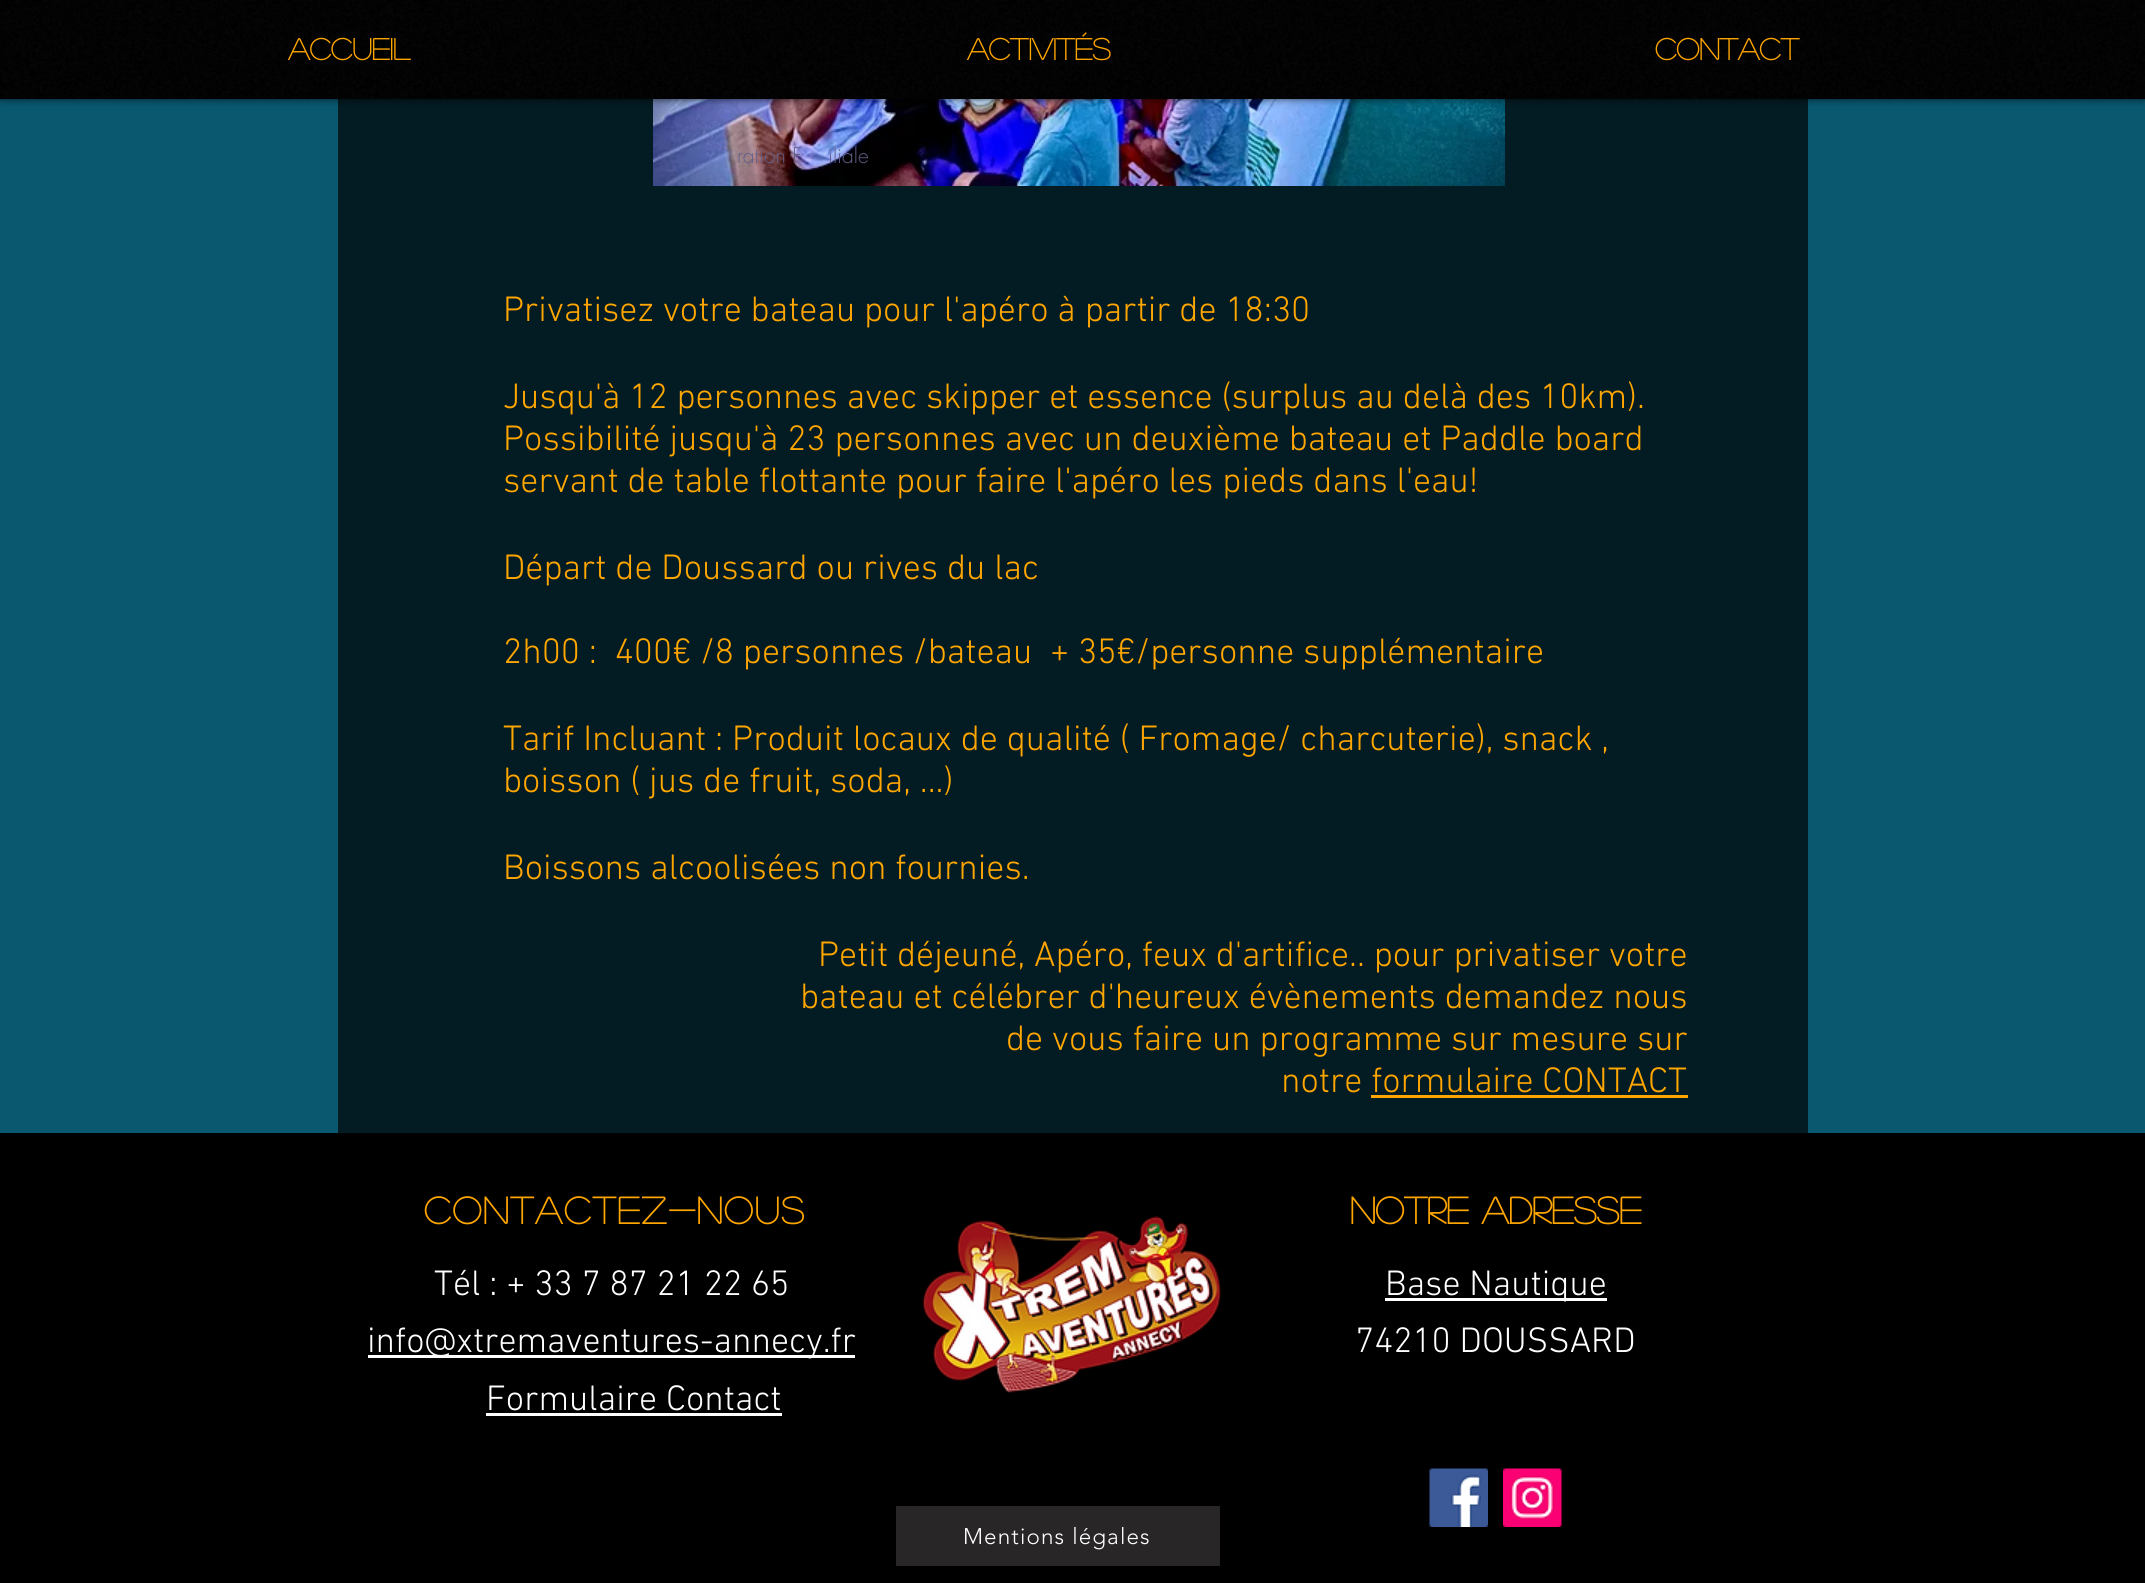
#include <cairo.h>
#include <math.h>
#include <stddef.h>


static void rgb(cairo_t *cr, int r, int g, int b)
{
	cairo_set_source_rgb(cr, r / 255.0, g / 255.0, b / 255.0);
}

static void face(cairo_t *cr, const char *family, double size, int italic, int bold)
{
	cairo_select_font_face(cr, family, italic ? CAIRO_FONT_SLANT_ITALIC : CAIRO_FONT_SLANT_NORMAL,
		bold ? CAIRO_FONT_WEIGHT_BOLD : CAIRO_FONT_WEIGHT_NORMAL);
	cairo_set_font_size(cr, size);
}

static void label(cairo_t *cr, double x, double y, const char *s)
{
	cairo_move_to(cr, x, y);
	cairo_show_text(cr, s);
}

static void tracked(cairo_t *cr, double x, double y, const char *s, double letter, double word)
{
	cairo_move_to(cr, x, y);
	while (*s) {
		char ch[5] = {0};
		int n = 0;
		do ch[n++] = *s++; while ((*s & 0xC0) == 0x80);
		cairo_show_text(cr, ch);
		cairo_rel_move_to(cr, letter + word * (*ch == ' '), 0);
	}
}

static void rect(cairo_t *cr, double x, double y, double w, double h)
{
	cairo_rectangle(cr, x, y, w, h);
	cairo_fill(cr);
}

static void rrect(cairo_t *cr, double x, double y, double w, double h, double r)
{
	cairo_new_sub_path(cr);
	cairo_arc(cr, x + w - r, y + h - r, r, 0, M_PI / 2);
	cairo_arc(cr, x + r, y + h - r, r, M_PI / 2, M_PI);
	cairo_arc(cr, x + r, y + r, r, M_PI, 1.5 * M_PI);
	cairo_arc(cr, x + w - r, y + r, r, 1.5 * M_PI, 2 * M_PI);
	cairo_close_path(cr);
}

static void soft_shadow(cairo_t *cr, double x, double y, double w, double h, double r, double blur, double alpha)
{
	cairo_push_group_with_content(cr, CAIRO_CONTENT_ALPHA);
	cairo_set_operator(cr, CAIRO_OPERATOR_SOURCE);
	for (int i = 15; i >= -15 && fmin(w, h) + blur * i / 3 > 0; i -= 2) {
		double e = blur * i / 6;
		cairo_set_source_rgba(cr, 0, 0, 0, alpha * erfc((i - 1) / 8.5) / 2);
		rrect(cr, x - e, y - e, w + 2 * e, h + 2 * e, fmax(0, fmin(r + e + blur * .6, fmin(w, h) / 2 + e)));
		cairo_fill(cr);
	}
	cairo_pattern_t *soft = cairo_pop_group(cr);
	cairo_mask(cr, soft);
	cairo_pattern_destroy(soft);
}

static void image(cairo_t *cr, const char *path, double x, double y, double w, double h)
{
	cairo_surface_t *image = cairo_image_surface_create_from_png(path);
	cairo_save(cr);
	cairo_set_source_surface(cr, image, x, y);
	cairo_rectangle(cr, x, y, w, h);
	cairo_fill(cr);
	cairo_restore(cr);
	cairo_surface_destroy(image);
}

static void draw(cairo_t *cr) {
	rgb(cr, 9, 88, 112);
	cairo_paint(cr);
	rgb(cr, 3, 27, 34);
	rect(cr, 338, 99, 1470, 1034);
	image(cr, "image1.png", 653, 99, 852, 87);
	rgb(cr, 0, 0, 0);
	soft_shadow(cr, 0, 0, 2145, 99, 0, 4, 0.7);
	rgb(cr, 0, 0, 0);
	rect(cr, 0, 0, 2145, 99);
	image(cr, "image0.png", 0, 0, 2145, 99);
	face(cr, "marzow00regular", 30, 0, 1);
	rgb(cr, 255, 166, 0);
	label(cr, 288, 60, "ACCUEIL");
	label(cr, 967, 60, "Activités");
	label(cr, 1655, 60, "CONTACT");
	face(cr, "futura Light", 21, 0, 0);
	rgb(cr, 98, 95, 136);
	label(cr, 737, 163, "ration F");
	label(cr, 828, 163, "iliale");
	face(cr, "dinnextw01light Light", 36, 0, 0);
	rgb(cr, 255, 166, 0);
	label(cr, 503, 321, "Privatisez votre bateau pour l'apéro à partir de 18:30");
	label(cr, 503, 408, "Jusqu'à 12 personnes avec skipper et essence (surplus au delà des 10km).");
	label(cr, 503, 450, "Possibilité jusqu'à 23 personnes avec un deuxième bateau et Paddle board");
	label(cr, 503, 492, "servant de table flottante pour faire l'apéro les pieds dans l'eau!");
	label(cr, 503, 579, "Départ de Doussard ou rives du lac");
	label(cr, 503, 663, "2h00 :  400€ /8 personnes /bateau  + 35€/personne supplémentaire");
	label(cr, 503, 750, "Tarif Incluant : Produit locaux de qualité ( Fromage/ charcuterie), snack ,");
	label(cr, 503, 792, "boisson ( jus de fruit, soda, ...)");
	label(cr, 503, 879, "Boissons alcoolisées non fournies.");
	label(cr, 818, 966, "Petit déjeuné, Apéro, feux d'artifice.. pour privatiser votre");
	label(cr, 800, 1008, "bateau et célébrer d'heureux évènements demandez nous");
	label(cr, 1006, 1050, "de vous faire un programme sur mesure sur");
	label(cr, 1281, 1092, "notre formulaire CONTACT");
	rect(cr, 1371, 1095, 317, 3);
	rgb(cr, 0, 0, 0);
	rect(cr, 0, 1133, 2145, 450);
	face(cr, "marzow00regular", 37.5, 0, 1);
	rgb(cr, 255, 166, 0);
	tracked(cr, 424, 1224, "contactez-nous", 1.9, 0);
	label(cr, 1350, 1224, "Notre adresse");
	face(cr, "dinnextw01light Light", 36, 0, 0);
	rgb(cr, 255, 255, 255);
	label(cr, 434, 1295, "Tél : + 33 7 87 21 22 65");
	rect(cr, 368, 1355, 487, 3);
	label(cr, 367, 1352, "info@xtremaventures-annecy.fr");
	label(cr, 486, 1410, "Formulaire Contact");
	rect(cr, 486, 1413, 296, 3);
	image(cr, "image2.png", 922, 1216, 300, 177);
	rect(cr, 1385, 1298, 222, 3);
	label(cr, 1385, 1295, "Base Nautique");
	label(cr, 1355, 1352, "74210 DOUSSARD");
	image(cr, "image3.png", 1429, 1468, 59, 59);
	image(cr, "image4.png", 1503, 1468, 59, 59);
	rgb(cr, 40, 38, 38);
	rect(cr, 896, 1506, 324, 60);
	face(cr, "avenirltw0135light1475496 Light", 22.5, 0, 0);
	rgb(cr, 255, 255, 255);
	tracked(cr, 963, 1544, "Mentions légales", 1.1, 0);
}

int main(void) {
	cairo_surface_t *surface = cairo_image_surface_create(CAIRO_FORMAT_RGB24, 2145, 1583);
	cairo_t *cr = cairo_create(surface);
	cairo_font_options_t *options = cairo_font_options_create();
	cairo_font_options_set_hint_metrics(options, CAIRO_HINT_METRICS_OFF);
	cairo_font_options_set_hint_style(options, CAIRO_HINT_STYLE_NONE);
	cairo_set_font_options(cr, options);
	cairo_set_miter_limit(cr, 4);
	draw(cr);
	cairo_surface_write_to_png(surface, "render.png");
	cairo_font_options_destroy(options);
	cairo_destroy(cr);
	cairo_surface_destroy(surface);
	return 0;
}
